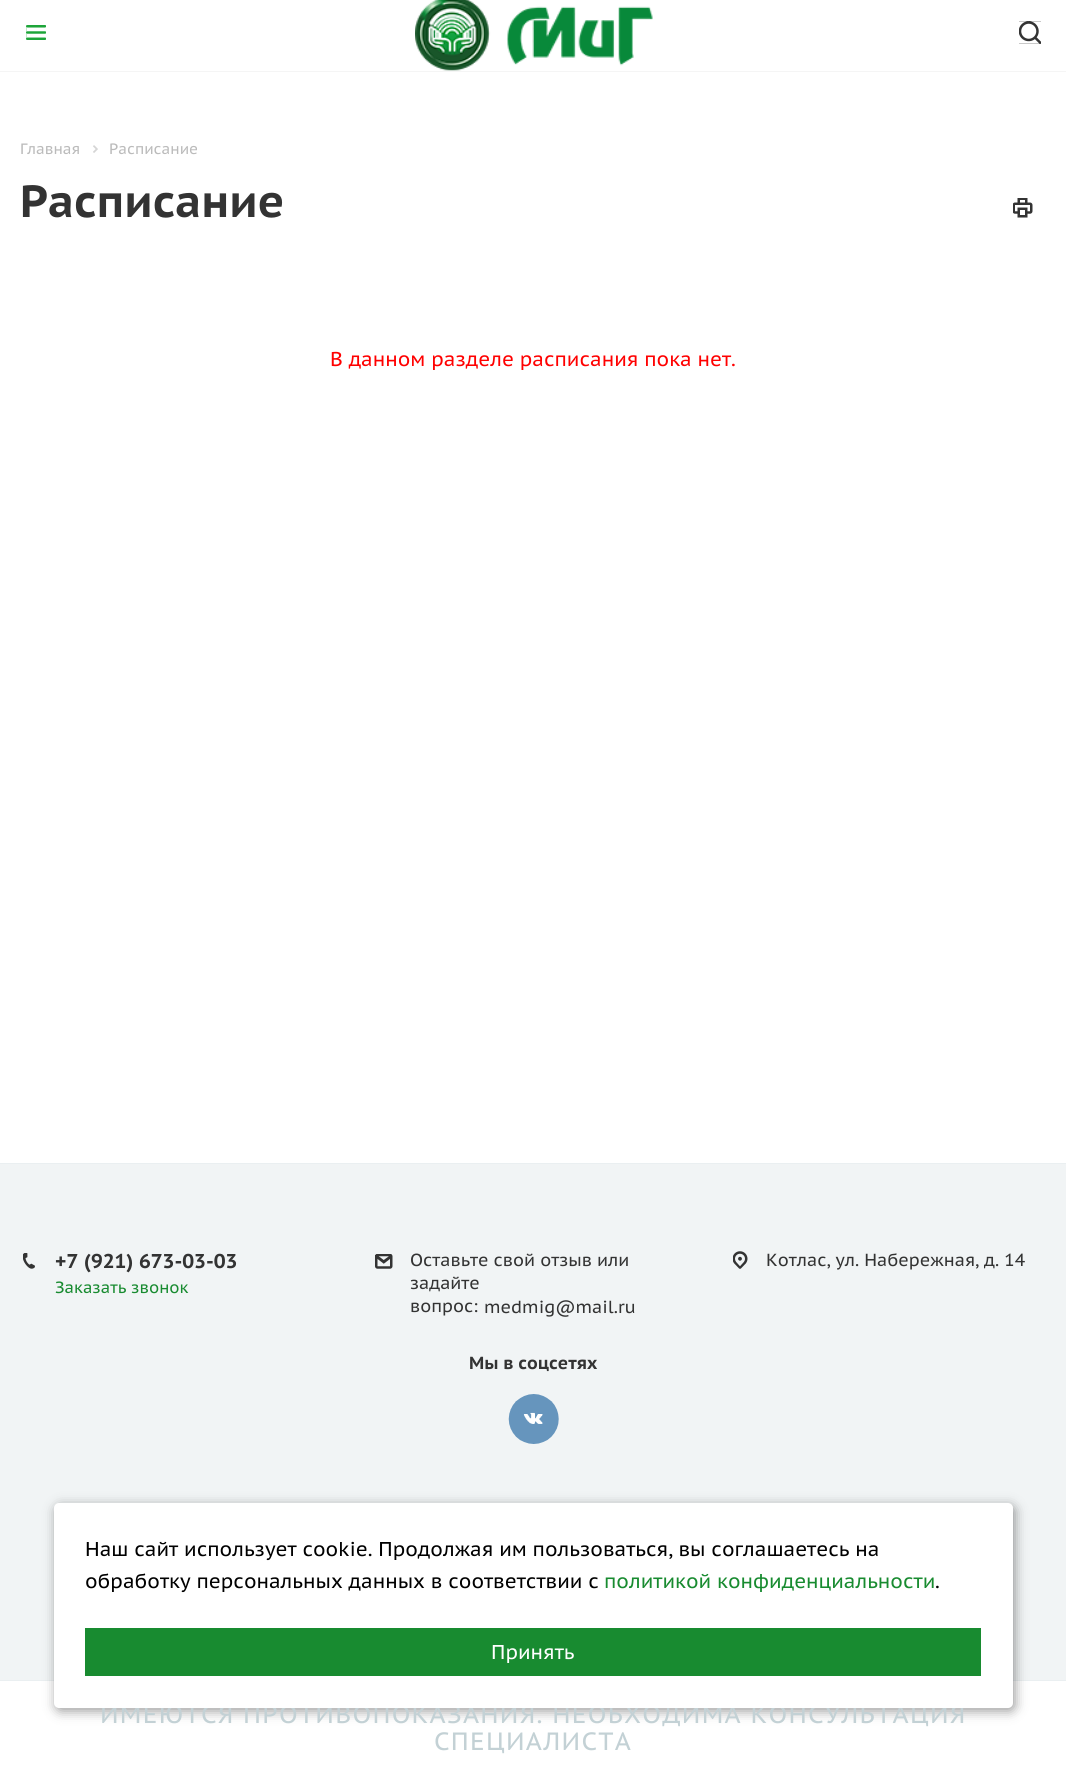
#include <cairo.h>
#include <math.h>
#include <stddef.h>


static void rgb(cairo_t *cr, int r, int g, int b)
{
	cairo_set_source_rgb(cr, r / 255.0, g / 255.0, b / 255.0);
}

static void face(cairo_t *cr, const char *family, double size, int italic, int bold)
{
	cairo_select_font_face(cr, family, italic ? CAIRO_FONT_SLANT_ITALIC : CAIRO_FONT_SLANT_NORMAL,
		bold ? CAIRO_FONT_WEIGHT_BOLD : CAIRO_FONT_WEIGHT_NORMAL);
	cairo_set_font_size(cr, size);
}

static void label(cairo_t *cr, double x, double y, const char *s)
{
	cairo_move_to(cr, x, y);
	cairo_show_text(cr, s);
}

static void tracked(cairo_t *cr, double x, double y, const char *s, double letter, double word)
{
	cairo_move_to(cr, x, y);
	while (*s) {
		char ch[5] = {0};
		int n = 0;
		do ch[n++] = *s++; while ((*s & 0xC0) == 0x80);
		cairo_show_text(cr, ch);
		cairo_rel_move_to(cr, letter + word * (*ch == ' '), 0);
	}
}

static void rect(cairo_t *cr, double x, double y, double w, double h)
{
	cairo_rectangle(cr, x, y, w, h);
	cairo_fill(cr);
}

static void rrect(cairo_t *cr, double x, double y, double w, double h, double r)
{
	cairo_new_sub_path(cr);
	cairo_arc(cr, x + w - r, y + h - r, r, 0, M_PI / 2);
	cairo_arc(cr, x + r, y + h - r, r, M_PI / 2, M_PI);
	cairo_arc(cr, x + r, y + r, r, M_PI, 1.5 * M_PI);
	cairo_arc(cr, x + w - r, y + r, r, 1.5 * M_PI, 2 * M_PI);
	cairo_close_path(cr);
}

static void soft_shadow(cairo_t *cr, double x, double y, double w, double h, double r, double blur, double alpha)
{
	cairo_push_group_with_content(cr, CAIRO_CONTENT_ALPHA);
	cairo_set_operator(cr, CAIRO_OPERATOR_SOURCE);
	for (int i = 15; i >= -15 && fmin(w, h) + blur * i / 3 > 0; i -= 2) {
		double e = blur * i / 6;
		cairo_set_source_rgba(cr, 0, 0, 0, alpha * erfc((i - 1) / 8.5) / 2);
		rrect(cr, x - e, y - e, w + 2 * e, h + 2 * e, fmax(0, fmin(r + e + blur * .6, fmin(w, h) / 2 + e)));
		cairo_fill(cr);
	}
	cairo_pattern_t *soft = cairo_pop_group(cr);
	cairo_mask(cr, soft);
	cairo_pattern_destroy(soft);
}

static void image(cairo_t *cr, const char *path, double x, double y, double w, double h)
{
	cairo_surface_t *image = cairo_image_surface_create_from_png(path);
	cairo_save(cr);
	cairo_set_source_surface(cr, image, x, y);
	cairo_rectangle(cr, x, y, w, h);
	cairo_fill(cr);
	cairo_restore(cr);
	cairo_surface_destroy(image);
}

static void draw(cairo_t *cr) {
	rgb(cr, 255, 255, 255);
	cairo_paint(cr);
	rgb(cr, 245, 245, 245);
	rect(cr, 0, 71, 1066, 1);
	rgb(cr, 29, 165, 57);
	rect(cr, 26, 25, 20, 15);
	image(cr, "image0.png", 26, 25, 20, 15);
	image(cr, "image1.png", 415, 0, 238, 71);
	rgb(cr, 51, 51, 51);
	rect(cr, 1019, 21, 22, 23);
	image(cr, "image2.png", 1019, 21, 22, 23);
	face(cr, "PT Sans Caption", 15, 0, 0);
	rgb(cr, 187, 187, 187);
	label(cr, 20, 154, "Главная");
	image(cr, "image3.png", 93, 145, 5, 8);
	label(cr, 109, 154, "Расписание");
	face(cr, "PT Sans Caption", 45, 0, 1);
	rgb(cr, 51, 51, 51);
	label(cr, 20, 217, "Расписание");
	image(cr, "image4.png", 1013, 198, 20, 20);
	face(cr, "PT Sans Caption", 20, 0, 0);
	rgb(cr, 255, 0, 0);
	label(cr, 330, 366, "В данном разделе расписания пока нет.");
	rgb(cr, 241, 244, 245);
	rect(cr, 0, 1164, 1066, 516);
	rgb(cr, 234, 239, 241);
	rect(cr, 0, 1163, 1066, 1);
	image(cr, "image5.png", 23, 1253, 12, 16);
	face(cr, "PT Sans Caption", 20, 0, 1);
	rgb(cr, 51, 51, 51);
	label(cr, 55, 1268, "+7 (921) 673-03-03");
	face(cr, "PT Sans Caption", 16.25, 0, 0);
	rgb(cr, 24, 139, 48);
	label(cr, 55, 1293, "Заказать звонок");
	image(cr, "image6.png", 375, 1254, 18, 15);
	face(cr, "PT Sans Caption", 17.5, 0, 0);
	rgb(cr, 51, 51, 51);
	label(cr, 410, 1266, "Оставьте свой отзыв или");
	label(cr, 410, 1289, "задайте");
	label(cr, 410, 1312, "вопрос:");
	label(cr, 484, 1313, "medmig@mail.ru");
	image(cr, "image7.png", 733, 1251, 15, 18);
	label(cr, 766, 1266, "Котлас, ул. Набережная, д. 14");
	face(cr, "PT Sans Caption", 17.5, 0, 1);
	label(cr, 469, 1369, "Мы в соцсетях");
	image(cr, "image8.png", 508, 1394, 51, 50);
	rgb(cr, 234, 239, 241);
	rect(cr, 0, 1680, 1066, 1);
	rgb(cr, 0, 0, 0);
	soft_shadow(cr, 56, 1506, 959, 205, 5, 6, 0.4);
	face(cr, "PT Sans Caption", 25, 0, 0);
	rgb(cr, 195, 209, 213);
	tracked(cr, 100, 1723, "ИМЕЮТСЯ ПРОТИВОПОКАЗАНИЯ. НЕОБХОДИМА КОНСУЛЬТАЦИЯ", 1.25, 0);
	rgb(cr, 255, 255, 255);
	rrect(cr, 54, 1503, 959, 205, 5);
	cairo_fill(cr);
	face(cr, "PT Sans Caption", 20, 0, 0);
	rgb(cr, 0, 0, 0);
	label(cr, 85, 1556, "Наш сайт использует cookie. Продолжая им пользоваться, вы соглашаетесь на");
	label(cr, 85, 1588, "обработку персональных данных в соответствии с");
	rgb(cr, 24, 139, 48);
	label(cr, 604, 1588, "политикой конфиденциальности");
	rgb(cr, 0, 0, 0);
	label(cr, 935, 1588, ".");
	rgb(cr, 24, 139, 48);
	rect(cr, 85, 1628, 896, 48);
	rgb(cr, 255, 255, 255);
	label(cr, 491, 1659, "Принять");
	face(cr, "PT Sans Caption", 25, 0, 0);
	rgb(cr, 195, 209, 213);
	tracked(cr, 434, 1750, "СПЕЦИАЛИСТА", 1.25, 0);
}

int main(void) {
	cairo_surface_t *surface = cairo_image_surface_create(CAIRO_FORMAT_RGB24, 1066, 1772);
	cairo_t *cr = cairo_create(surface);
	cairo_font_options_t *options = cairo_font_options_create();
	cairo_font_options_set_hint_metrics(options, CAIRO_HINT_METRICS_OFF);
	cairo_font_options_set_hint_style(options, CAIRO_HINT_STYLE_NONE);
	cairo_set_font_options(cr, options);
	cairo_set_miter_limit(cr, 4);
	draw(cr);
	cairo_surface_write_to_png(surface, "render.png");
	cairo_font_options_destroy(options);
	cairo_destroy(cr);
	cairo_surface_destroy(surface);
	return 0;
}
